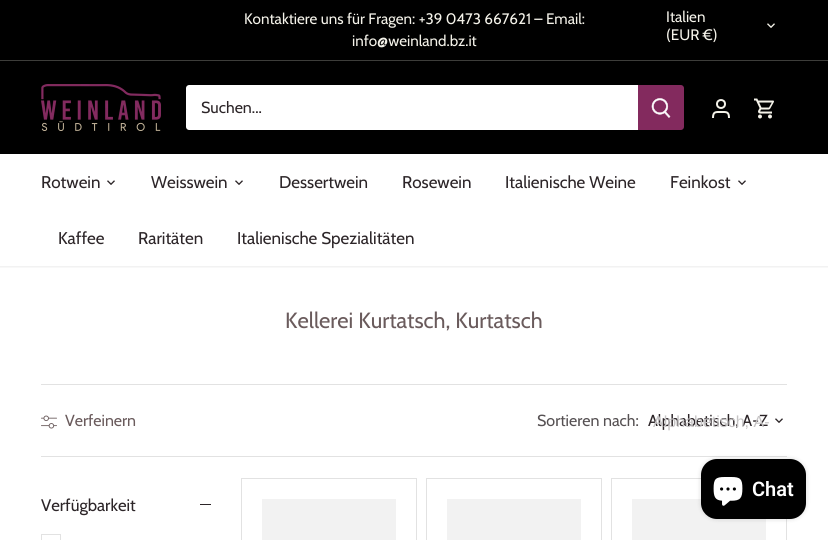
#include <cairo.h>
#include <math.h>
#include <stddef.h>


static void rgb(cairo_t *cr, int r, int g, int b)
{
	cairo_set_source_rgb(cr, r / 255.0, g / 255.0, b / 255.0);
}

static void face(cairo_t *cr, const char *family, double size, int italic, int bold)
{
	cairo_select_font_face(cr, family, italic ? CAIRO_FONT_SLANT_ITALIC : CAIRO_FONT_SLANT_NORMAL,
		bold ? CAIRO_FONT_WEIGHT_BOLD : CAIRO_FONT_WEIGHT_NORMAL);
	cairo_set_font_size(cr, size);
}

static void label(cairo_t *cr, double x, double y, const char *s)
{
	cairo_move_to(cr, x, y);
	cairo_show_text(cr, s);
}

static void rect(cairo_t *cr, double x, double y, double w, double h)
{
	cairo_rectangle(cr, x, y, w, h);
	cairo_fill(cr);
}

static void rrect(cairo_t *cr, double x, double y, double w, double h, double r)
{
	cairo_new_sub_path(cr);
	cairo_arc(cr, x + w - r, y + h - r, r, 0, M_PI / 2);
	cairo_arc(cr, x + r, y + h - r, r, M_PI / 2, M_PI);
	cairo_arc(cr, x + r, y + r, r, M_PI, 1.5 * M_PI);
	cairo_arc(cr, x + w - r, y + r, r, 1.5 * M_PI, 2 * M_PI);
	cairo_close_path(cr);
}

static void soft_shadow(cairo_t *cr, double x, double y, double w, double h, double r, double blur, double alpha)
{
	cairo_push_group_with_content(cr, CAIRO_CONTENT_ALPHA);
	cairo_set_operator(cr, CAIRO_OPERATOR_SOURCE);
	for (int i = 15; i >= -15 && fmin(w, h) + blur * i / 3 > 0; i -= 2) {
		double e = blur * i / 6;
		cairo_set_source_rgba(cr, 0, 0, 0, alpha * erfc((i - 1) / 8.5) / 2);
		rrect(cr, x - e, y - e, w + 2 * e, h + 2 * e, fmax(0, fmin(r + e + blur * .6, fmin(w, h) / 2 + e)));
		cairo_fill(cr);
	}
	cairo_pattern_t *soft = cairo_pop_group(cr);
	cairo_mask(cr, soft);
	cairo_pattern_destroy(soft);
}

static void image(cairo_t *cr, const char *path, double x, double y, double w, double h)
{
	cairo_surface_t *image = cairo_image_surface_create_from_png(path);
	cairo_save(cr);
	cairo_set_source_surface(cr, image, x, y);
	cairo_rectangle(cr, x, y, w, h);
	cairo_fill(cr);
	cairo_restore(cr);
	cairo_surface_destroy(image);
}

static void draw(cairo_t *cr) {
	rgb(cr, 255, 255, 255);
	cairo_paint(cr);
	cairo_save(cr);
	cairo_rectangle(cr, 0, 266, 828, 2);
	cairo_clip(cr);
	rgb(cr, 0, 0, 0);
	soft_shadow(cr, -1, 60, 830, 207, 0, 1.5, 0.08);
	cairo_restore(cr);
	rgb(cr, 0, 0, 0);
	rect(cr, 0, 0, 828, 60);
	rgb(cr, 61, 61, 58);
	rect(cr, 0, 60, 828, 1);
	face(cr, "Cabin", 15.2, 0, 0);
	rgb(cr, 244, 242, 233);
	label(cr, 244, 24, "Kontaktiere uns für Fragen: +39 0473 667621 – Email:");
	label(cr, 352, 46, "info@weinland.bz.it");
	label(cr, 666, 22, "Italien");
	image(cr, "image0.png", 767, 23, 8, 5);
	label(cr, 666, 40, "(EUR €)");
	rgb(cr, 0, 0, 0);
	rect(cr, 0, 61, 828, 93);
	image(cr, "image1.png", 41, 84, 120, 47);
	rgb(cr, 255, 255, 255);
	cairo_new_path(cr);
	cairo_move_to(cr, 189, 85);
	cairo_line_to(cr, 639, 85);
	cairo_line_to(cr, 639, 130);
	cairo_line_to(cr, 189, 130);
	cairo_curve_to(cr, 187.5, 130, 186, 128.5, 186, 127);
	cairo_line_to(cr, 186, 88);
	cairo_curve_to(cr, 186, 86.5, 187.5, 85, 189, 85);
	cairo_close_path(cr);
	cairo_fill(cr);
	face(cr, "Cabin", 16, 0, 0);
	rgb(cr, 44, 37, 40);
	label(cr, 201, 113, "Suchen...");
	rgb(cr, 131, 42, 94);
	cairo_new_path(cr);
	cairo_move_to(cr, 638, 85);
	cairo_line_to(cr, 681, 85);
	cairo_curve_to(cr, 682.5, 85, 684, 86.5, 684, 88);
	cairo_line_to(cr, 684, 127);
	cairo_curve_to(cr, 684, 128.5, 682.5, 130, 681, 130);
	cairo_line_to(cr, 638, 130);
	cairo_close_path(cr);
	cairo_fill(cr);
	image(cr, "image2.png", 651, 98, 20, 20);
	cairo_arc(cr, 721, 104, 4, 0, 2 * M_PI);
	rgb(cr, 244, 242, 233);
	cairo_stroke(cr);
	cairo_new_path(cr);
	cairo_move_to(cr, 729, 118);
	cairo_curve_to(cr, 729, 111.5, 726.5, 112, 721, 112);
	cairo_curve_to(cr, 715.5, 112, 713, 111.5, 713, 118);
	cairo_stroke(cr);
	image(cr, "image3.png", 754, 98, 20, 21);
	face(cr, "Cabin", 17, 0, 0);
	rgb(cr, 44, 37, 40);
	label(cr, 41, 188, "Rotwein");
	image(cr, "image4.png", 107, 180, 8, 5);
	label(cr, 151, 188, "Weisswein");
	image(cr, "image4.png", 235, 180, 8, 5);
	label(cr, 279, 188, "Dessertwein");
	label(cr, 402, 188, "Rosewein");
	label(cr, 505, 188, "Italienische Weine");
	label(cr, 670, 188, "Feinkost");
	image(cr, "image4.png", 738, 180, 8, 5);
	label(cr, 58, 244, "Kaffee");
	label(cr, 138, 244, "Raritäten");
	label(cr, 237, 244, "Italienische Spezialitäten");
	face(cr, "Cabin", 22, 0, 0);
	rgb(cr, 106, 91, 92);
	label(cr, 285, 328, "Kellerei Kurtatsch, Kurtatsch");
	rgb(cr, 226, 226, 226);
	rect(cr, 41, 384, 746, 1);
	rect(cr, 41, 456, 746, 1);
	image(cr, "image5.png", 41, 415, 16, 14);
	face(cr, "Cabin", 16, 0, 0);
	rgb(cr, 106, 91, 92);
	label(cr, 65, 426, "Verfeinern");
	rgb(cr, 86, 81, 83);
	label(cr, 537, 426, "Sortieren nach:");
	rgb(cr, 44, 37, 40);
	label(cr, 648, 426, "Alphabetisch, A-Z");
	face(cr, "Liberation Sans", 16, 0, 0);
	rgb(cr, 198, 196, 197);
	label(cr, 653, 427, "Alphabetisch, A-");
	image(cr, "image4.png", 775, 418, 8, 5);
	face(cr, "Cabin", 16.75, 0, 0);
	rgb(cr, 44, 37, 40);
	label(cr, 41, 511, "Verfügbarkeit");
	rect(cr, 200, 504, 11, 1);
	cairo_rectangle(cr, 41.5, 534.5, 19, 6);
	rgb(cr, 226, 226, 226);
	cairo_set_line_width(cr, 1);
	cairo_stroke(cr);
	cairo_rectangle(cr, 241.5, 478.5, 175, 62);
	cairo_stroke(cr);
	rgb(cr, 242, 242, 242);
	rect(cr, 262, 499, 134, 41);
	cairo_rectangle(cr, 426.5, 478.5, 175, 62);
	rgb(cr, 226, 226, 226);
	cairo_stroke(cr);
	rgb(cr, 242, 242, 242);
	rect(cr, 447, 499, 134, 41);
	cairo_rectangle(cr, 611.5, 478.5, 175, 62);
	rgb(cr, 226, 226, 226);
	cairo_stroke(cr);
	rgb(cr, 242, 242, 242);
	rect(cr, 632, 499, 134, 41);
	rgb(cr, 0, 0, 0);
	soft_shadow(cr, 701, 459, 105, 60, 16, 2.5, 0.15);
	rgb(cr, 0, 0, 0);
	rrect(cr, 701, 459, 105, 60, 16);
	cairo_fill(cr);
	image(cr, "image6.png", 713, 477, 30, 29);
	face(cr, "Roboto SemiBold", 20, 0, 0);
	rgb(cr, 255, 255, 255);
	label(cr, 752, 496, "Chat");
}

int main(void) {
	cairo_surface_t *surface = cairo_image_surface_create(CAIRO_FORMAT_RGB24, 828, 540);
	cairo_t *cr = cairo_create(surface);
	cairo_font_options_t *options = cairo_font_options_create();
	cairo_font_options_set_hint_metrics(options, CAIRO_HINT_METRICS_OFF);
	cairo_font_options_set_hint_style(options, CAIRO_HINT_STYLE_NONE);
	cairo_set_font_options(cr, options);
	cairo_set_miter_limit(cr, 4);
	draw(cr);
	cairo_surface_write_to_png(surface, "render.png");
	cairo_font_options_destroy(options);
	cairo_destroy(cr);
	cairo_surface_destroy(surface);
	return 0;
}
